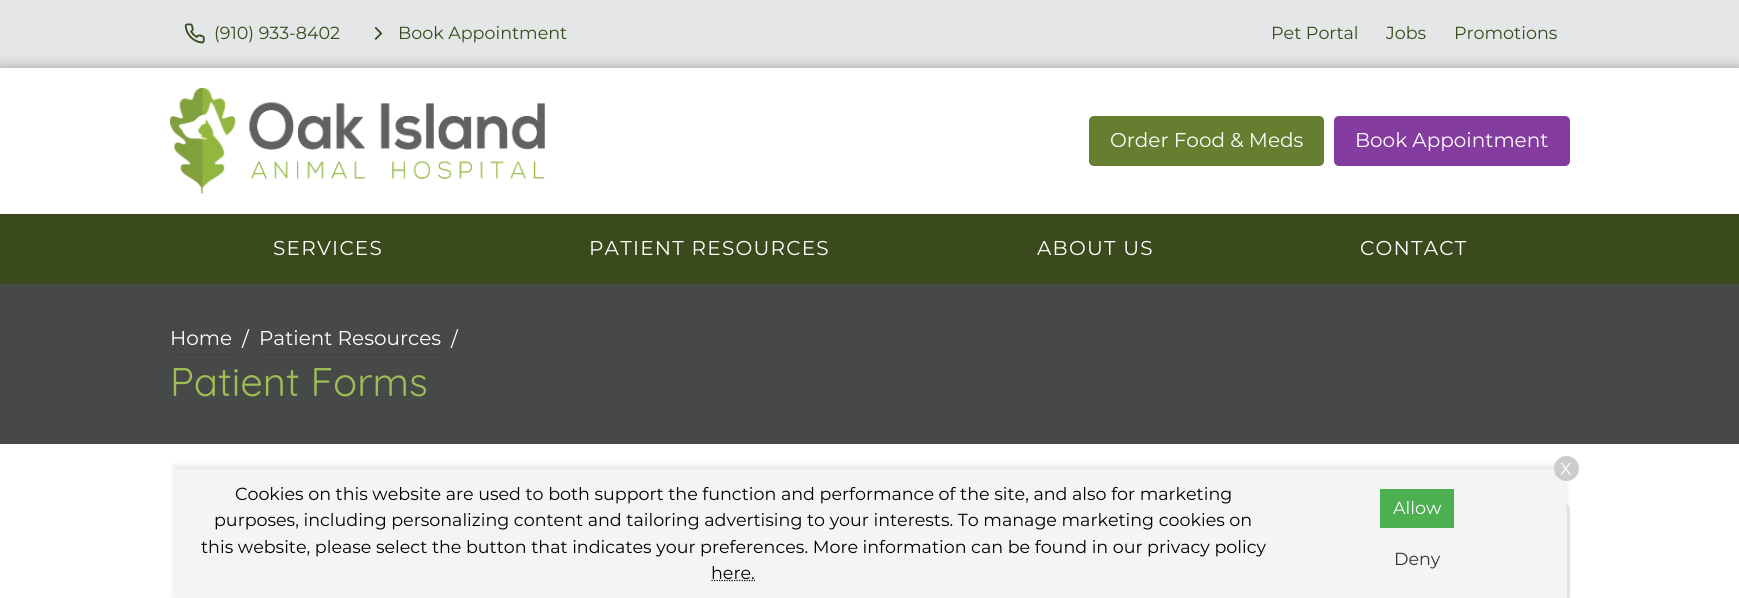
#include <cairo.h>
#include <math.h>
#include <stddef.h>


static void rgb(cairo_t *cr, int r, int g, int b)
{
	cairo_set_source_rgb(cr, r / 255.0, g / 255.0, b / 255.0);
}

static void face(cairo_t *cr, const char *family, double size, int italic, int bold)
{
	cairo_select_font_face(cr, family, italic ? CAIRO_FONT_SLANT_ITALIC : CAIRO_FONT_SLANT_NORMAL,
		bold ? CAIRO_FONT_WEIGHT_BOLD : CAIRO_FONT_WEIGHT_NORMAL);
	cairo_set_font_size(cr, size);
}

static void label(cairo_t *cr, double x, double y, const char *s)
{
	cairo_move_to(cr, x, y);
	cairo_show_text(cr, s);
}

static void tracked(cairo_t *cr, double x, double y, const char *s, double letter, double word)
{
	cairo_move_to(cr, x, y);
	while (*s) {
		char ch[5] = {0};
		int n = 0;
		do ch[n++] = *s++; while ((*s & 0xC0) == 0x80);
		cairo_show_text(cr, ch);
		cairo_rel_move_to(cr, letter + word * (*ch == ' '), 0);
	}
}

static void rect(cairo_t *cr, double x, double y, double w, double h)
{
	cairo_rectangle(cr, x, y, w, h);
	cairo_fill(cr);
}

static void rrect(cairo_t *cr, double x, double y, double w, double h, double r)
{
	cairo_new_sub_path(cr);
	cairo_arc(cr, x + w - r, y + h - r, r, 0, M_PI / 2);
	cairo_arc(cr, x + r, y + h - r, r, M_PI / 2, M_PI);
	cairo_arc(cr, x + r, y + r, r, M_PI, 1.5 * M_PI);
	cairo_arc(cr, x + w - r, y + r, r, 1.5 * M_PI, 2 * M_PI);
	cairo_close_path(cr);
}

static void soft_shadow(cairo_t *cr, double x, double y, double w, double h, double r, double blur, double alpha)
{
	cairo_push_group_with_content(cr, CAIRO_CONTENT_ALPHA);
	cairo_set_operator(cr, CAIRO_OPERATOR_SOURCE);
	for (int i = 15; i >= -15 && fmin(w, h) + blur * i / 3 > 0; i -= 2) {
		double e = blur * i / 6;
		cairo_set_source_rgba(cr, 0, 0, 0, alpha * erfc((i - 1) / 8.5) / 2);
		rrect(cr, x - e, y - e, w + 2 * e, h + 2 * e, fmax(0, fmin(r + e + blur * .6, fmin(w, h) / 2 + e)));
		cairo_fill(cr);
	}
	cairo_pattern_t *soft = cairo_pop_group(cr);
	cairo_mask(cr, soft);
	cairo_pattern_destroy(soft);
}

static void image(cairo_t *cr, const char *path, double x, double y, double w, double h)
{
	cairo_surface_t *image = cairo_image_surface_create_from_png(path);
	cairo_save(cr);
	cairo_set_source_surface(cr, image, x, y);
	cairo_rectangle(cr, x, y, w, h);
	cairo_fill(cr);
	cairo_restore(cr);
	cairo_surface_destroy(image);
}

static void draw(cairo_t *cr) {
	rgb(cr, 255, 255, 255);
	cairo_paint(cr);
	rgb(cr, 228, 230, 231);
	rect(cr, 0, 0, 1739, 68);
	image(cr, "image0.png", 184, 23, 21, 21);
	face(cr, "Montserrat", 17.5, 0, 0);
	rgb(cr, 59, 74, 28);
	label(cr, 214, 39, "(910) 933-8402");
	image(cr, "image1.png", 374, 27, 8, 13);
	label(cr, 398, 39, "Book Appointment");
	label(cr, 1271, 39, "Pet Portal");
	label(cr, 1386, 39, "Jobs");
	label(cr, 1454, 39, "Promotions");
	rgb(cr, 0, 0, 0);
	soft_shadow(cr, 0, 70, 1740, 146, 0, 7.5, 0.4);
	rgb(cr, 255, 255, 255);
	rect(cr, 0, 68, 1739, 146);
	image(cr, "image2.png", 170, 88, 375, 106);
	rgb(cr, 101, 126, 48);
	rrect(cr, 1089, 116, 235, 50, 5);
	cairo_fill(cr);
	face(cr, "Montserrat", 20, 0, 0);
	rgb(cr, 255, 255, 255);
	label(cr, 1110, 147, "Order Food & Meds");
	rgb(cr, 133, 60, 159);
	rrect(cr, 1334, 116, 236, 50, 5);
	cairo_fill(cr);
	rgb(cr, 255, 255, 255);
	label(cr, 1355, 147, "Book Appointment");
	rgb(cr, 59, 74, 28);
	rect(cr, 0, 214, 1739, 70);
	rgb(cr, 255, 255, 255);
	tracked(cr, 273, 255, "SERVICES", 1.25, 0);
	tracked(cr, 589, 255, "PATIENT RESOURCES", 1.25, 0);
	tracked(cr, 1037, 255, "ABOUT US", 1.25, 0);
	tracked(cr, 1360, 255, "CONTACT", 1.25, 0);
	rgb(cr, 71, 72, 72);
	rect(cr, 0, 284, 1739, 160);
	rgb(cr, 64, 65, 65);
	rect(cr, 170, 354, 63, 1);
	rgb(cr, 255, 255, 255);
	label(cr, 170, 345, "Home");
	label(cr, 242, 346, "/");
	rgb(cr, 64, 65, 65);
	rect(cr, 259, 354, 182, 1);
	rgb(cr, 255, 255, 255);
	label(cr, 259, 345, "Patient Resources");
	label(cr, 451, 346, "/");
	face(cr, "Quicksand", 40, 0, 0);
	rgb(cr, 157, 190, 85);
	label(cr, 170, 396, "Patient Forms");
	rrect(cr, 1131.5, 505.5, 437, 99, 3.5);
	rgb(cr, 228, 230, 231);
	cairo_set_line_width(cr, 3);
	cairo_stroke(cr);
	rgb(cr, 0, 0, 0);
	soft_shadow(cr, 174, 466, 1392, 130, 0, 3, 0.1);
	rgb(cr, 244, 244, 244);
	rect(cr, 174, 469, 1392, 129);
	rgb(cr, 204, 204, 204);
	cairo_arc(cr, 1566.5, 468.5, 12.5, 0, 2 * M_PI);
	cairo_fill(cr);
	face(cr, "Montserrat", 17.5, 0, 0);
	rgb(cr, 255, 255, 255);
	label(cr, 1560, 475, "X");
	rgb(cr, 0, 0, 0);
	label(cr, 235, 500, "Cookies on this website are used to both support the function and performance of the site, and also for marketing");
	label(cr, 214, 526, "purposes, including personalizing content and tailoring advertising to your interests. To manage marketing cookies on");
	label(cr, 201, 553, "this website, please select the button that indicates your preferences. More information can be found in our privacy policy");
	cairo_new_path(cr);
	cairo_move_to(cr, 711.5, 580.5);
	cairo_line_to(cr, 755, 580.5);
	cairo_set_line_width(cr, 1.2);
	cairo_set_dash(cr, (double[]){1.25, 1.25}, 2, 0);
	cairo_stroke(cr);
	label(cr, 711, 579, "here.");
	rgb(cr, 76, 175, 80);
	rect(cr, 1380, 489, 74, 39);
	rgb(cr, 255, 255, 255);
	label(cr, 1393, 514, "Allow");
	rgb(cr, 51, 51, 51);
	label(cr, 1394, 565, "Deny");
}

int main(void) {
	cairo_surface_t *surface = cairo_image_surface_create(CAIRO_FORMAT_RGB24, 1739, 598);
	cairo_t *cr = cairo_create(surface);
	cairo_font_options_t *options = cairo_font_options_create();
	cairo_font_options_set_hint_metrics(options, CAIRO_HINT_METRICS_OFF);
	cairo_font_options_set_hint_style(options, CAIRO_HINT_STYLE_NONE);
	cairo_set_font_options(cr, options);
	cairo_set_miter_limit(cr, 4);
	draw(cr);
	cairo_surface_write_to_png(surface, "render.png");
	cairo_font_options_destroy(options);
	cairo_destroy(cr);
	cairo_surface_destroy(surface);
	return 0;
}
